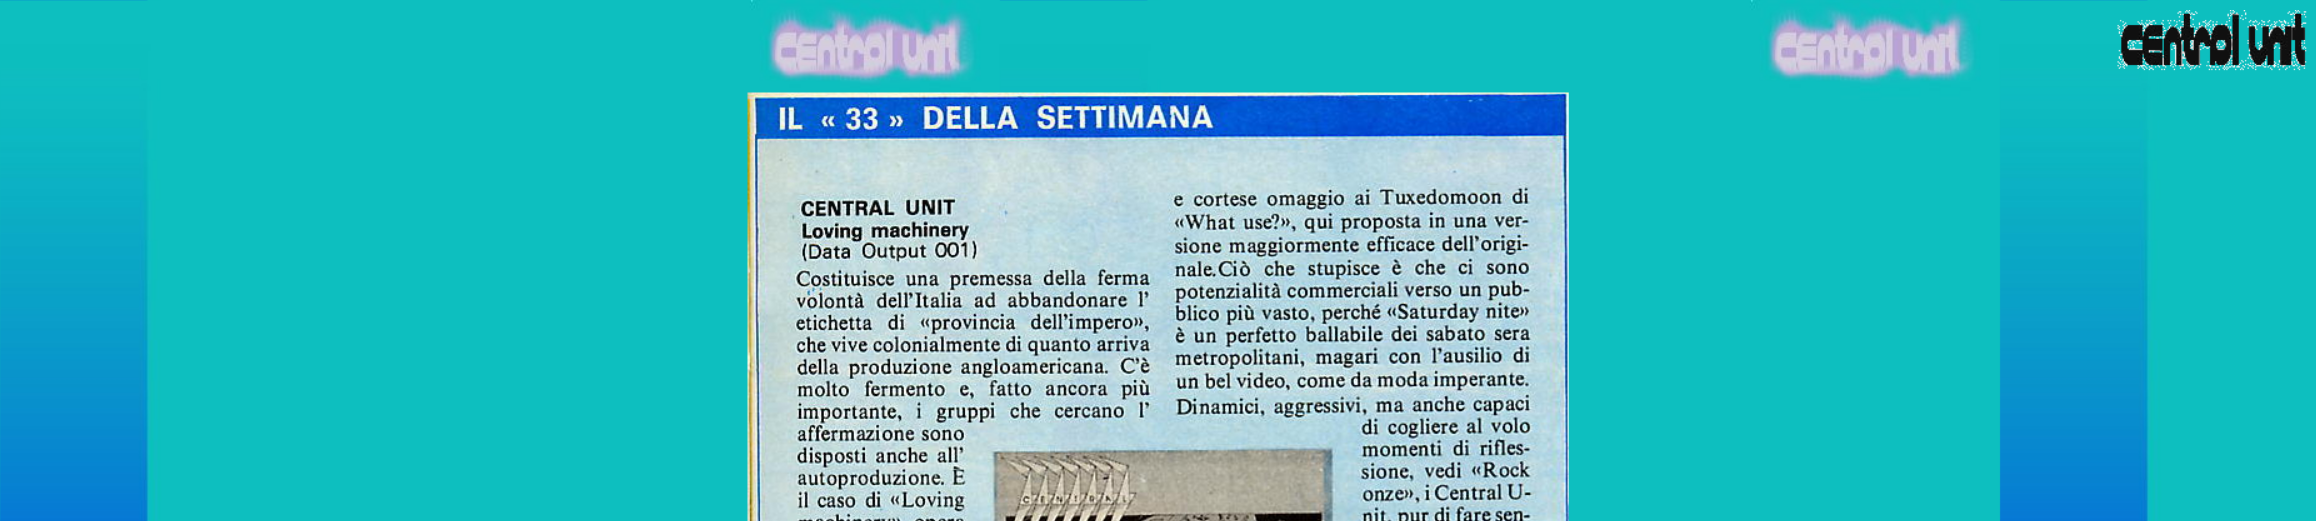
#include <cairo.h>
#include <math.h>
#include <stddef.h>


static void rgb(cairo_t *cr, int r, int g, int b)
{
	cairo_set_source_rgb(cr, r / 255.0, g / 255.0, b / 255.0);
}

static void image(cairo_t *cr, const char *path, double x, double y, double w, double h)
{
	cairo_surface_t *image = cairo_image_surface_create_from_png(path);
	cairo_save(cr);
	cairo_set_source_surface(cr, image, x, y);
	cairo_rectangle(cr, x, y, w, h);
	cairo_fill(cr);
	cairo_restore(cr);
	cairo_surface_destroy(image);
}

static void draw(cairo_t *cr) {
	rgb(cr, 255, 255, 255);
	cairo_paint(cr);
	image(cr, "image0.png", 0, 0, 2316, 521);
	image(cr, "image1.png", 2117, 10, 190, 61);
	image(cr, "image2.png", 747, 92, 822, 429);
}

int main(void) {
	cairo_surface_t *surface = cairo_image_surface_create(CAIRO_FORMAT_RGB24, 2316, 521);
	cairo_t *cr = cairo_create(surface);
	cairo_font_options_t *options = cairo_font_options_create();
	cairo_font_options_set_hint_metrics(options, CAIRO_HINT_METRICS_OFF);
	cairo_font_options_set_hint_style(options, CAIRO_HINT_STYLE_NONE);
	cairo_set_font_options(cr, options);
	cairo_set_miter_limit(cr, 4);
	draw(cr);
	cairo_surface_write_to_png(surface, "render.png");
	cairo_font_options_destroy(options);
	cairo_destroy(cr);
	cairo_surface_destroy(surface);
	return 0;
}
